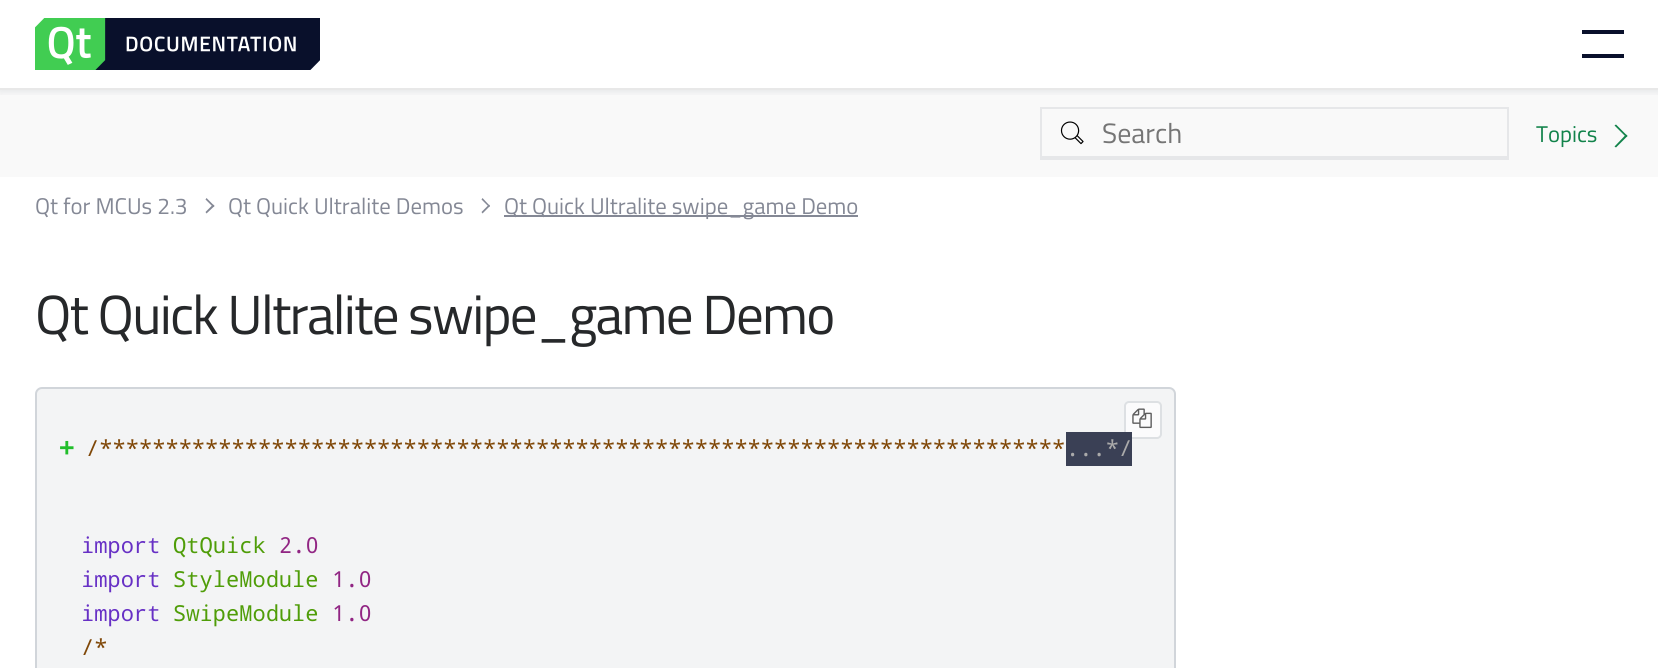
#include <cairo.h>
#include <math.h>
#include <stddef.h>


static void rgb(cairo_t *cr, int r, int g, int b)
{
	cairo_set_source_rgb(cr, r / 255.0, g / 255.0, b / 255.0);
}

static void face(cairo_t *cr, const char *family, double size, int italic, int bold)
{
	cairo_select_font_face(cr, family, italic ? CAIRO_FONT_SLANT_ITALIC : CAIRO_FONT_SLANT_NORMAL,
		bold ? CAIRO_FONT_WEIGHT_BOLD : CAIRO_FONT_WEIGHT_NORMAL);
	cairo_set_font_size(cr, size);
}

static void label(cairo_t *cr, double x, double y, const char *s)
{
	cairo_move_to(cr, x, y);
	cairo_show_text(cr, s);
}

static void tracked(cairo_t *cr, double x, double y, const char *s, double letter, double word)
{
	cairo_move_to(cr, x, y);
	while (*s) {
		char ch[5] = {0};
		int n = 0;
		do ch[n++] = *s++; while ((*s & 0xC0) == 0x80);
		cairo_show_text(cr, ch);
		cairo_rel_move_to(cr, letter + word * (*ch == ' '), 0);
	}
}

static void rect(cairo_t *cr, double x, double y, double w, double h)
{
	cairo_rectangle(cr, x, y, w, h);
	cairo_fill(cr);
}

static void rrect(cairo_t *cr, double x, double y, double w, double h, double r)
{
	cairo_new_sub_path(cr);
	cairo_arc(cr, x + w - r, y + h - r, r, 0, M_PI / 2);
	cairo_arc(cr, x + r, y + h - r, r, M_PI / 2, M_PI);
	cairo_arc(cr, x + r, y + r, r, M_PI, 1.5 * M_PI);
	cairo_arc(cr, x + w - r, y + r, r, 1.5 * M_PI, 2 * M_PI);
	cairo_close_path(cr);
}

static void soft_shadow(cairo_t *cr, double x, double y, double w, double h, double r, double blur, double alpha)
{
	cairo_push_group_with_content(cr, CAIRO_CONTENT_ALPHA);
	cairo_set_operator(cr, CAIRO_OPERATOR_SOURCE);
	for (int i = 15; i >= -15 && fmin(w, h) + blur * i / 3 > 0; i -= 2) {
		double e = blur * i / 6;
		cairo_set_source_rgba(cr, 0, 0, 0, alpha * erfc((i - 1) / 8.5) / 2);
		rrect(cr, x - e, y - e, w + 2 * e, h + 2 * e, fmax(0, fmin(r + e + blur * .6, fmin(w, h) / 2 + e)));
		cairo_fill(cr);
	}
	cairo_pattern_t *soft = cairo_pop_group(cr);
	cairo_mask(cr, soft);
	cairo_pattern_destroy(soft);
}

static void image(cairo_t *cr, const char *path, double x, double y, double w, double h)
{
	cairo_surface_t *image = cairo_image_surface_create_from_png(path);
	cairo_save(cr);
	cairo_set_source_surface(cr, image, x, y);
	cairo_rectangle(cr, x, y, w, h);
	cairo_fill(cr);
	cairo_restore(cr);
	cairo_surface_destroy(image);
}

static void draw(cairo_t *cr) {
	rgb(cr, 255, 255, 255);
	cairo_paint(cr);
	rgb(cr, 249, 249, 249);
	rect(cr, 0, 90, 1658, 87);
	cairo_save(cr);
	cairo_rectangle(cr, 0, 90, 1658, 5);
	cairo_clip(cr);
	rgb(cr, 9, 16, 43);
	soft_shadow(cr, 0, 2, 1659, 89, 0, 4.5, 0.1);
	cairo_restore(cr);
	rgb(cr, 232, 232, 232);
	rect(cr, 0, 88, 1658, 2);
	image(cr, "image0.png", 35, 18, 285, 52);
	rgb(cr, 9, 16, 43);
	rect(cr, 1582, 30, 42, 4);
	rect(cr, 1582, 54, 42, 4);
	image(cr, "image1.png", 1060, 121, 24, 24);
	rgb(cr, 230, 231, 233);
	rect(cr, 1040, 107, 469, 2);
	rect(cr, 1507, 107, 2, 52);
	rect(cr, 1040, 156, 469, 4);
	rect(cr, 1040, 107, 2, 52);
	face(cr, "Titillium Web", 28, 0, 0);
	rgb(cr, 117, 117, 117);
	label(cr, 1102, 143, "Search");
	face(cr, "Titillium Web", 22.75, 0, 0);
	rgb(cr, 132, 136, 149);
	label(cr, 35, 214, "Qt for MCUs 2.3");
	cairo_new_path(cr);
	cairo_move_to(cr, 205.5, 199.5);
	cairo_line_to(cr, 206.5, 198);
	cairo_line_to(cr, 214.5, 206);
	cairo_line_to(cr, 213, 207);
	cairo_close_path(cr);
	cairo_fill(cr);
	cairo_new_path(cr);
	cairo_move_to(cr, 205.5, 212);
	cairo_line_to(cr, 213, 204.5);
	cairo_line_to(cr, 214.5, 206);
	cairo_line_to(cr, 206.5, 213.5);
	cairo_close_path(cr);
	cairo_fill(cr);
	label(cr, 228, 214, "Qt Quick Ultralite Demos");
	cairo_new_path(cr);
	cairo_move_to(cr, 481.5, 199.5);
	cairo_line_to(cr, 482.5, 198);
	cairo_line_to(cr, 490, 206);
	cairo_line_to(cr, 489, 207);
	cairo_close_path(cr);
	cairo_fill(cr);
	cairo_new_path(cr);
	cairo_move_to(cr, 481.5, 212);
	cairo_line_to(cr, 489, 204.5);
	cairo_line_to(cr, 490, 206);
	cairo_line_to(cr, 482.5, 213.5);
	cairo_close_path(cr);
	cairo_fill(cr);
	rect(cr, 504, 215, 354, 2);
	label(cr, 504, 214, "Qt Quick Ultralite swipe_game Demo");
	face(cr, "Titillium Web", 55.1, 0, 0);
	rgb(cr, 38, 40, 42);
	tracked(cr, 35, 334, "Qt Quick Ultralite swipe_game Demo", -1.75, 0);
	rgb(cr, 243, 244, 245);
	rrect(cr, 36, 388, 1139, 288, 6);
	cairo_fill_preserve(cr);
	rgb(cr, 209, 213, 218);
	cairo_stroke(cr);
	rgb(cr, 251, 251, 252);
	rrect(cr, 1125, 402, 36, 36, 4);
	cairo_fill_preserve(cr);
	rgb(cr, 221, 224, 227);
	cairo_stroke(cr);
	image(cr, "image2.png", 1132, 408, 20, 21);
	face(cr, "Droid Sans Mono", 28, 0, 1);
	rgb(cr, 33, 190, 43);
	label(cr, 58, 458, "+");
	face(cr, "Droid Sans Mono", 22.05, 0, 0);
	rgb(cr, 127, 71, 7);
	label(cr, 86, 456, "/*************************************************************************");
	rgb(cr, 58, 64, 85);
	rect(cr, 1066, 432, 66, 34);
	rgb(cr, 170, 170, 170);
	label(cr, 1066, 456, "...*/");
	rgb(cr, 103, 48, 197);
	label(cr, 81, 553, "import");
	rgb(cr, 79, 157, 8);
	label(cr, 173, 553, "QtQuick");
	rgb(cr, 145, 37, 131);
	label(cr, 279, 553, "2.0");
	rgb(cr, 103, 48, 197);
	label(cr, 81, 587, "import");
	rgb(cr, 79, 157, 8);
	label(cr, 173, 587, "StyleModule");
	rgb(cr, 145, 37, 131);
	label(cr, 332, 587, "1.0");
	rgb(cr, 103, 48, 197);
	label(cr, 81, 621, "import");
	rgb(cr, 79, 157, 8);
	label(cr, 173, 621, "SwipeModule");
	rgb(cr, 145, 37, 131);
	label(cr, 332, 621, "1.0");
	rgb(cr, 127, 71, 7);
	label(cr, 81, 655, "/*");
	face(cr, "Titillium Web", 22.75, 0, 0);
	rgb(cr, 18, 131, 75);
	label(cr, 1536, 142, "Topics");
	cairo_new_path(cr);
	cairo_move_to(cr, 1614.5, 125.5);
	cairo_line_to(cr, 1616, 124.5);
	cairo_line_to(cr, 1627.5, 136);
	cairo_line_to(cr, 1626, 137);
	cairo_close_path(cr);
	cairo_fill(cr);
	cairo_new_path(cr);
	cairo_move_to(cr, 1614.5, 146.5);
	cairo_line_to(cr, 1626, 134.5);
	cairo_line_to(cr, 1627.5, 136);
	cairo_line_to(cr, 1616, 147.5);
	cairo_close_path(cr);
	cairo_fill(cr);
}

int main(void) {
	cairo_surface_t *surface = cairo_image_surface_create(CAIRO_FORMAT_RGB24, 1658, 668);
	cairo_t *cr = cairo_create(surface);
	cairo_font_options_t *options = cairo_font_options_create();
	cairo_font_options_set_hint_metrics(options, CAIRO_HINT_METRICS_OFF);
	cairo_font_options_set_hint_style(options, CAIRO_HINT_STYLE_NONE);
	cairo_set_font_options(cr, options);
	cairo_set_miter_limit(cr, 4);
	draw(cr);
	cairo_surface_write_to_png(surface, "render.png");
	cairo_font_options_destroy(options);
	cairo_destroy(cr);
	cairo_surface_destroy(surface);
	return 0;
}
